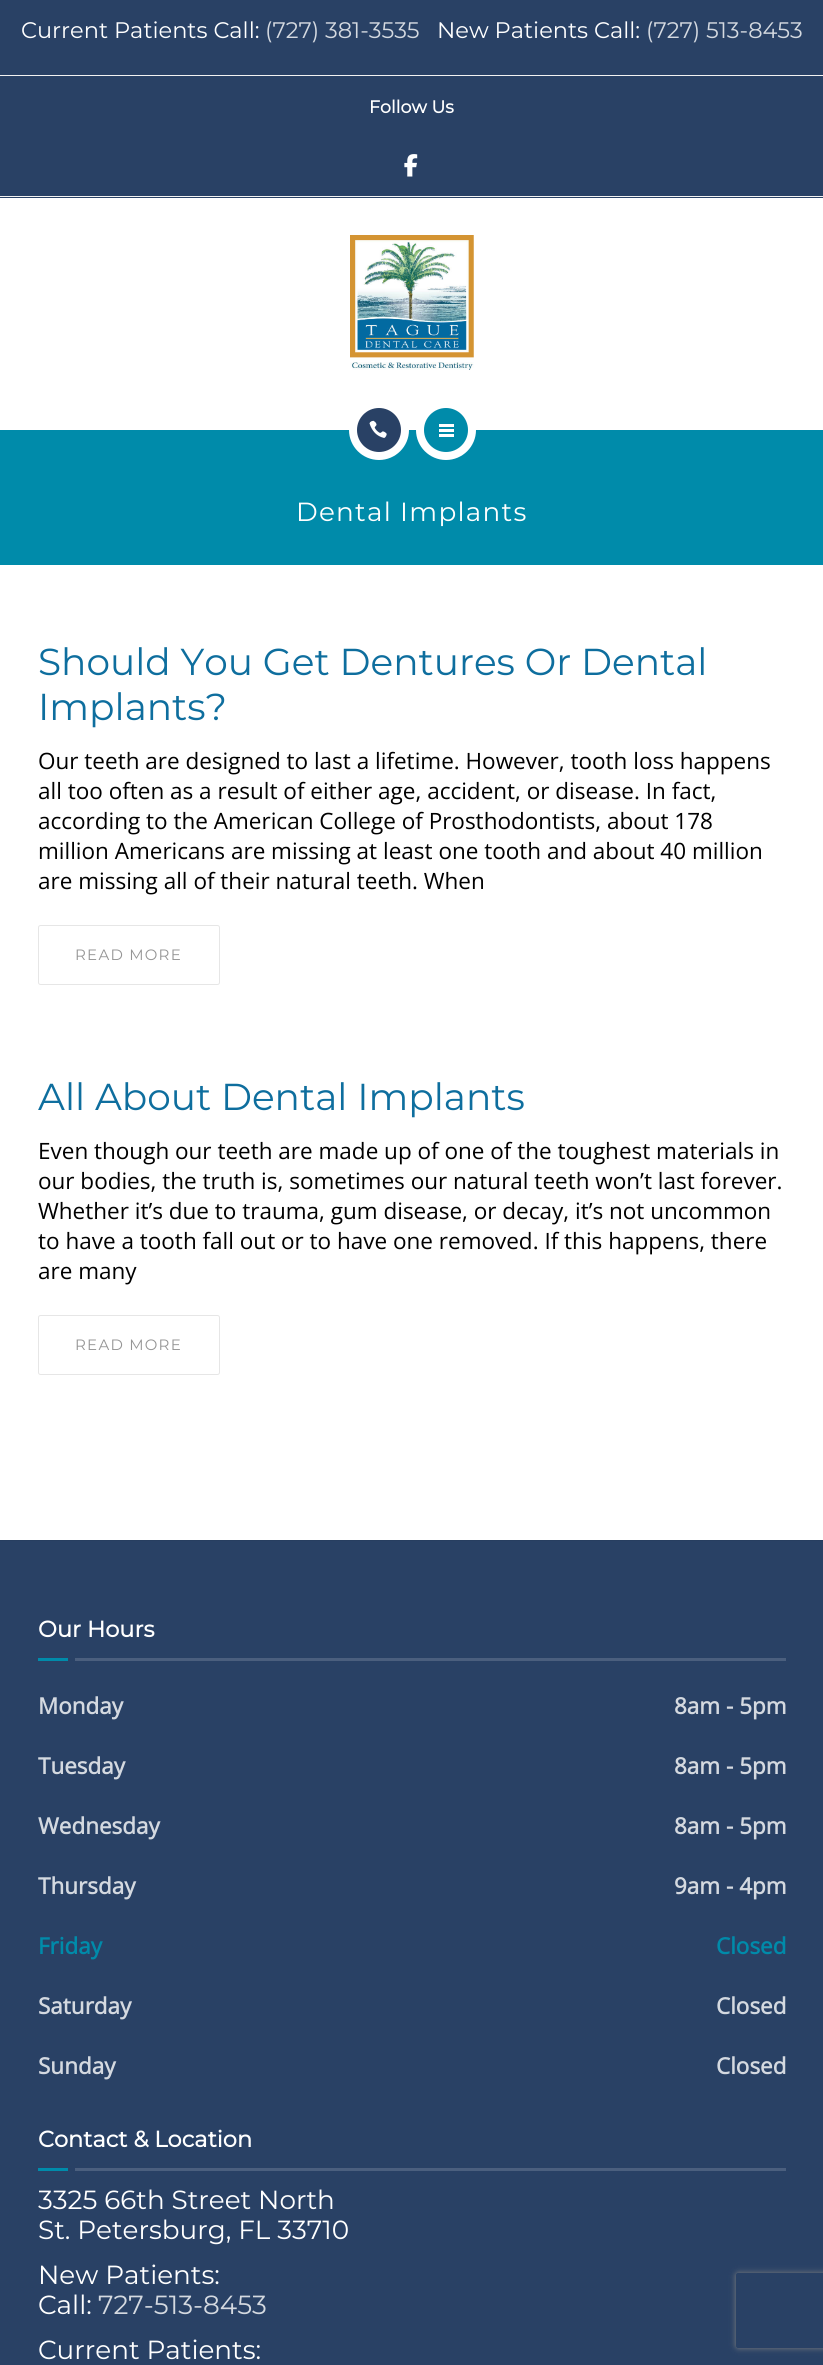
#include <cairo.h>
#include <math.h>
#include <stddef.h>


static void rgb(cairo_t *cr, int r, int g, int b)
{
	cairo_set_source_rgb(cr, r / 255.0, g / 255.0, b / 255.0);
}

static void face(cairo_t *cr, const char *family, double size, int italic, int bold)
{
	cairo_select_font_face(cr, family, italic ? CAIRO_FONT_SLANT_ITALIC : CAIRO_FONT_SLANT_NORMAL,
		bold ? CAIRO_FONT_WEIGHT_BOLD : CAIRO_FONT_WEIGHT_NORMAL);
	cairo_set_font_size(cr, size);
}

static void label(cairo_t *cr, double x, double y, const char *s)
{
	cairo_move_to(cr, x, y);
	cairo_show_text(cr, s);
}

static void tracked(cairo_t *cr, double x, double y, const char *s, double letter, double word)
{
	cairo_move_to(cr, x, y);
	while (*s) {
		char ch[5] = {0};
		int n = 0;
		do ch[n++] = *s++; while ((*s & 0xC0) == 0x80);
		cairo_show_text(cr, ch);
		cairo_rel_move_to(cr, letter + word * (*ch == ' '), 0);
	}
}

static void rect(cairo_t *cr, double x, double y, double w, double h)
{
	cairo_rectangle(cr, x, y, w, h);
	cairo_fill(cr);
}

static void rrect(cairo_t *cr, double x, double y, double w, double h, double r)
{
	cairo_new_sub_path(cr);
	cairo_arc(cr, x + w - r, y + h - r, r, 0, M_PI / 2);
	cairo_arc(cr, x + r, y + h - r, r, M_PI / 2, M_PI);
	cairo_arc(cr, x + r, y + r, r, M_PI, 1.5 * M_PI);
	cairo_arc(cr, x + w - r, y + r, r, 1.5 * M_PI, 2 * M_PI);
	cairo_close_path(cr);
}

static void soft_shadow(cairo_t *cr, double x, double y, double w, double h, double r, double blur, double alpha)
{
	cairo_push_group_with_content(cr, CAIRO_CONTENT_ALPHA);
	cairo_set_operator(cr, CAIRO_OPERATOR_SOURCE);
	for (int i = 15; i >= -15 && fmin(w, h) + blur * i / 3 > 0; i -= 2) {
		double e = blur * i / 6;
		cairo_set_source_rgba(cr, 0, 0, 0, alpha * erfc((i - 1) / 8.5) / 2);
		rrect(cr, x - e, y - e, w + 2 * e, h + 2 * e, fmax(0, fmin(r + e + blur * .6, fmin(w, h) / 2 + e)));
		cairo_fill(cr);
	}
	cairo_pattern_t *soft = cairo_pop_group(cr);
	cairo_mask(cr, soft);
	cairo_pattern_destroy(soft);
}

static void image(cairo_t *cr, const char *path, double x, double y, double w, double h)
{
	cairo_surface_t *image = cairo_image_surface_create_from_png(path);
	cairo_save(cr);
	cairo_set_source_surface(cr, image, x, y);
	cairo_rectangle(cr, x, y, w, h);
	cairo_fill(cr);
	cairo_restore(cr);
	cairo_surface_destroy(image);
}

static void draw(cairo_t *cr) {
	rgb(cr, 255, 255, 255);
	cairo_paint(cr);
	rgb(cr, 41, 65, 101);
	rect(cr, 0, 0, 823, 198);
	rgb(cr, 242, 242, 242);
	rect(cr, 0, 75, 823, 1);
	face(cr, "Montserrat Thin", 22.5, 0, 0);
	rgb(cr, 255, 255, 255);
	label(cr, 21, 38, "Current Patients Call:");
	rgb(cr, 212, 217, 224);
	label(cr, 265, 38, "(727) 381-3535");
	rgb(cr, 255, 255, 255);
	label(cr, 437, 38, "New Patients Call:");
	rgb(cr, 212, 217, 224);
	label(cr, 646, 38, "(727) 513-8453");
	rgb(cr, 242, 242, 242);
	rect(cr, 0, 196, 823, 1);
	face(cr, "Montserrat", 17.5, 0, 1);
	rgb(cr, 255, 255, 255);
	label(cr, 369, 113, "Follow Us");
	image(cr, "image0.png", 404, 154, 14, 23);
	image(cr, "image1.png", 350, 235, 124, 135);
	rgb(cr, 0, 139, 170);
	rect(cr, 0, 430, 823, 135);
	rgb(cr, 41, 65, 101);
	cairo_arc(cr, 379, 430, 26, 0, 2 * M_PI);
	cairo_fill_preserve(cr);
	rgb(cr, 255, 255, 255);
	cairo_set_line_width(cr, 8);
	cairo_stroke(cr);
	image(cr, "image2.png", 369, 420, 18, 18);
	rgb(cr, 0, 139, 170);
	cairo_arc(cr, 446, 430, 26, 0, 2 * M_PI);
	cairo_fill_preserve(cr);
	rgb(cr, 255, 255, 255);
	cairo_stroke(cr);
	rect(cr, 439, 424, 15, 3);
	rect(cr, 439, 429, 15, 3);
	rect(cr, 439, 434, 15, 3);
	face(cr, "Montserrat Thin", 26.25, 0, 0);
	tracked(cr, 296, 521, "Dental Implants", 1.25, 0);
	face(cr, "Montserrat Thin", 37.5, 0, 0);
	rgb(cr, 14, 110, 158);
	label(cr, 38, 675, "Should You Get Dentures Or Dental");
	label(cr, 38, 720, "Implants?");
	face(cr, "Open Sans", 22.5, 0, 0);
	rgb(cr, 0, 0, 0);
	label(cr, 38, 769, "Our teeth are designed to last a lifetime. However, tooth loss happens");
	label(cr, 38, 799, "all too often as a result of either age, accident, or disease. In fact,");
	label(cr, 38, 829, "according to the American College of Prosthodontists, about 178");
	label(cr, 38, 859, "million Americans are missing at least one tooth and about 40 million");
	label(cr, 38, 889, "are missing all of their natural teeth. When");
	rrect(cr, 38.5, 925.5, 181, 59, 2);
	rgb(cr, 230, 230, 230);
	cairo_set_line_width(cr, 1);
	cairo_stroke(cr);
	face(cr, "Montserrat Thin", 15, 0, 0);
	rgb(cr, 149, 149, 149);
	tracked(cr, 75, 960, "READ MORE", 1.25, 0);
	face(cr, "Montserrat Thin", 37.5, 0, 0);
	rgb(cr, 14, 110, 158);
	label(cr, 38, 1110, "All About Dental Implants");
	face(cr, "Open Sans", 22.5, 0, 0);
	rgb(cr, 0, 0, 0);
	label(cr, 38, 1159, "Even though our teeth are made up of one of the toughest materials in");
	label(cr, 38, 1189, "our bodies, the truth is, sometimes our natural teeth won’t last forever.");
	label(cr, 38, 1219, "Whether it’s due to trauma, gum disease, or decay, it’s not uncommon");
	label(cr, 38, 1249, "to have a tooth fall out or to have one removed. If this happens, there");
	label(cr, 38, 1279, "are many");
	rrect(cr, 38.5, 1315.5, 181, 59, 2);
	rgb(cr, 230, 230, 230);
	cairo_stroke(cr);
	face(cr, "Montserrat Thin", 15, 0, 0);
	rgb(cr, 149, 149, 149);
	tracked(cr, 75, 1350, "READ MORE", 1.25, 0);
	rgb(cr, 41, 65, 101);
	rect(cr, 0, 1541, 823, 824);
	rgb(cr, 39, 62, 96);
	rect(cr, 0, 1540, 823, 1);
	face(cr, "Montserrat", 22.5, 0, 1);
	rgb(cr, 255, 255, 255);
	label(cr, 38, 1637, "Our Hours");
	rgb(cr, 0, 139, 170);
	rect(cr, 38, 1658, 30, 3);
	rgb(cr, 75, 95, 126);
	rect(cr, 75, 1658, 711, 3);
	face(cr, "Open Sans", 22.5, 0, 1);
	rgb(cr, 212, 217, 224);
	label(cr, 38, 1714, "Monday");
	label(cr, 674, 1714, "8am - 5pm");
	label(cr, 38, 1774, "Tuesday");
	label(cr, 674, 1774, "8am - 5pm");
	label(cr, 38, 1834, "Wednesday");
	label(cr, 674, 1834, "8am - 5pm");
	label(cr, 38, 1894, "Thursday");
	label(cr, 674, 1894, "9am - 4pm");
	rgb(cr, 0, 139, 170);
	label(cr, 38, 1954, "Friday");
	label(cr, 716, 1954, "Closed");
	rgb(cr, 212, 217, 224);
	label(cr, 38, 2014, "Saturday");
	label(cr, 716, 2014, "Closed");
	label(cr, 38, 2074, "Sunday");
	label(cr, 716, 2074, "Closed");
	face(cr, "Montserrat", 22.5, 0, 1);
	rgb(cr, 255, 255, 255);
	label(cr, 38, 2147, "Contact & Location");
	rgb(cr, 0, 139, 170);
	rect(cr, 38, 2168, 30, 3);
	rgb(cr, 75, 95, 126);
	rect(cr, 75, 2168, 711, 3);
	face(cr, "Montserrat Thin", 26.25, 0, 0);
	rgb(cr, 255, 255, 255);
	label(cr, 38, 2209, "3325 66th Street North");
	label(cr, 38, 2239, "St. Petersburg, FL 33710");
	label(cr, 38, 2284, "New Patients:");
	label(cr, 38, 2314, "Call:");
	rgb(cr, 212, 217, 224);
	label(cr, 98, 2314, "727-513-8453");
	rgb(cr, 255, 255, 255);
	label(cr, 38, 2359, "Current Patients:");
	cairo_save(cr);
	cairo_set_fill_rule(cr, CAIRO_FILL_RULE_EVEN_ODD);
	cairo_new_path(cr);
	cairo_move_to(cr, 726, 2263);
	cairo_line_to(cr, 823, 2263);
	cairo_line_to(cr, 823, 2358);
	cairo_line_to(cr, 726, 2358);
	cairo_close_path(cr);
	cairo_move_to(cr, 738.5, 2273);
	cairo_line_to(cr, 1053.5, 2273);
	cairo_curve_to(cr, 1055, 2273, 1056, 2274, 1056, 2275.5);
	cairo_line_to(cr, 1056, 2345.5);
	cairo_curve_to(cr, 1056, 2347, 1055, 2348, 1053.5, 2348);
	cairo_line_to(cr, 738.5, 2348);
	cairo_curve_to(cr, 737, 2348, 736, 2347, 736, 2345.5);
	cairo_line_to(cr, 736, 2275.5);
	cairo_curve_to(cr, 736, 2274, 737, 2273, 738.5, 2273);
	cairo_close_path(cr);
	cairo_clip(cr);
	rgb(cr, 128, 128, 128);
	soft_shadow(cr, 736, 2273, 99, 75, 2.5, 3, 1);
	cairo_restore(cr);
}

int main(void) {
	cairo_surface_t *surface = cairo_image_surface_create(CAIRO_FORMAT_RGB24, 823, 2365);
	cairo_t *cr = cairo_create(surface);
	cairo_font_options_t *options = cairo_font_options_create();
	cairo_font_options_set_hint_metrics(options, CAIRO_HINT_METRICS_OFF);
	cairo_font_options_set_hint_style(options, CAIRO_HINT_STYLE_NONE);
	cairo_set_font_options(cr, options);
	cairo_set_miter_limit(cr, 4);
	draw(cr);
	cairo_surface_write_to_png(surface, "render.png");
	cairo_font_options_destroy(options);
	cairo_destroy(cr);
	cairo_surface_destroy(surface);
	return 0;
}
